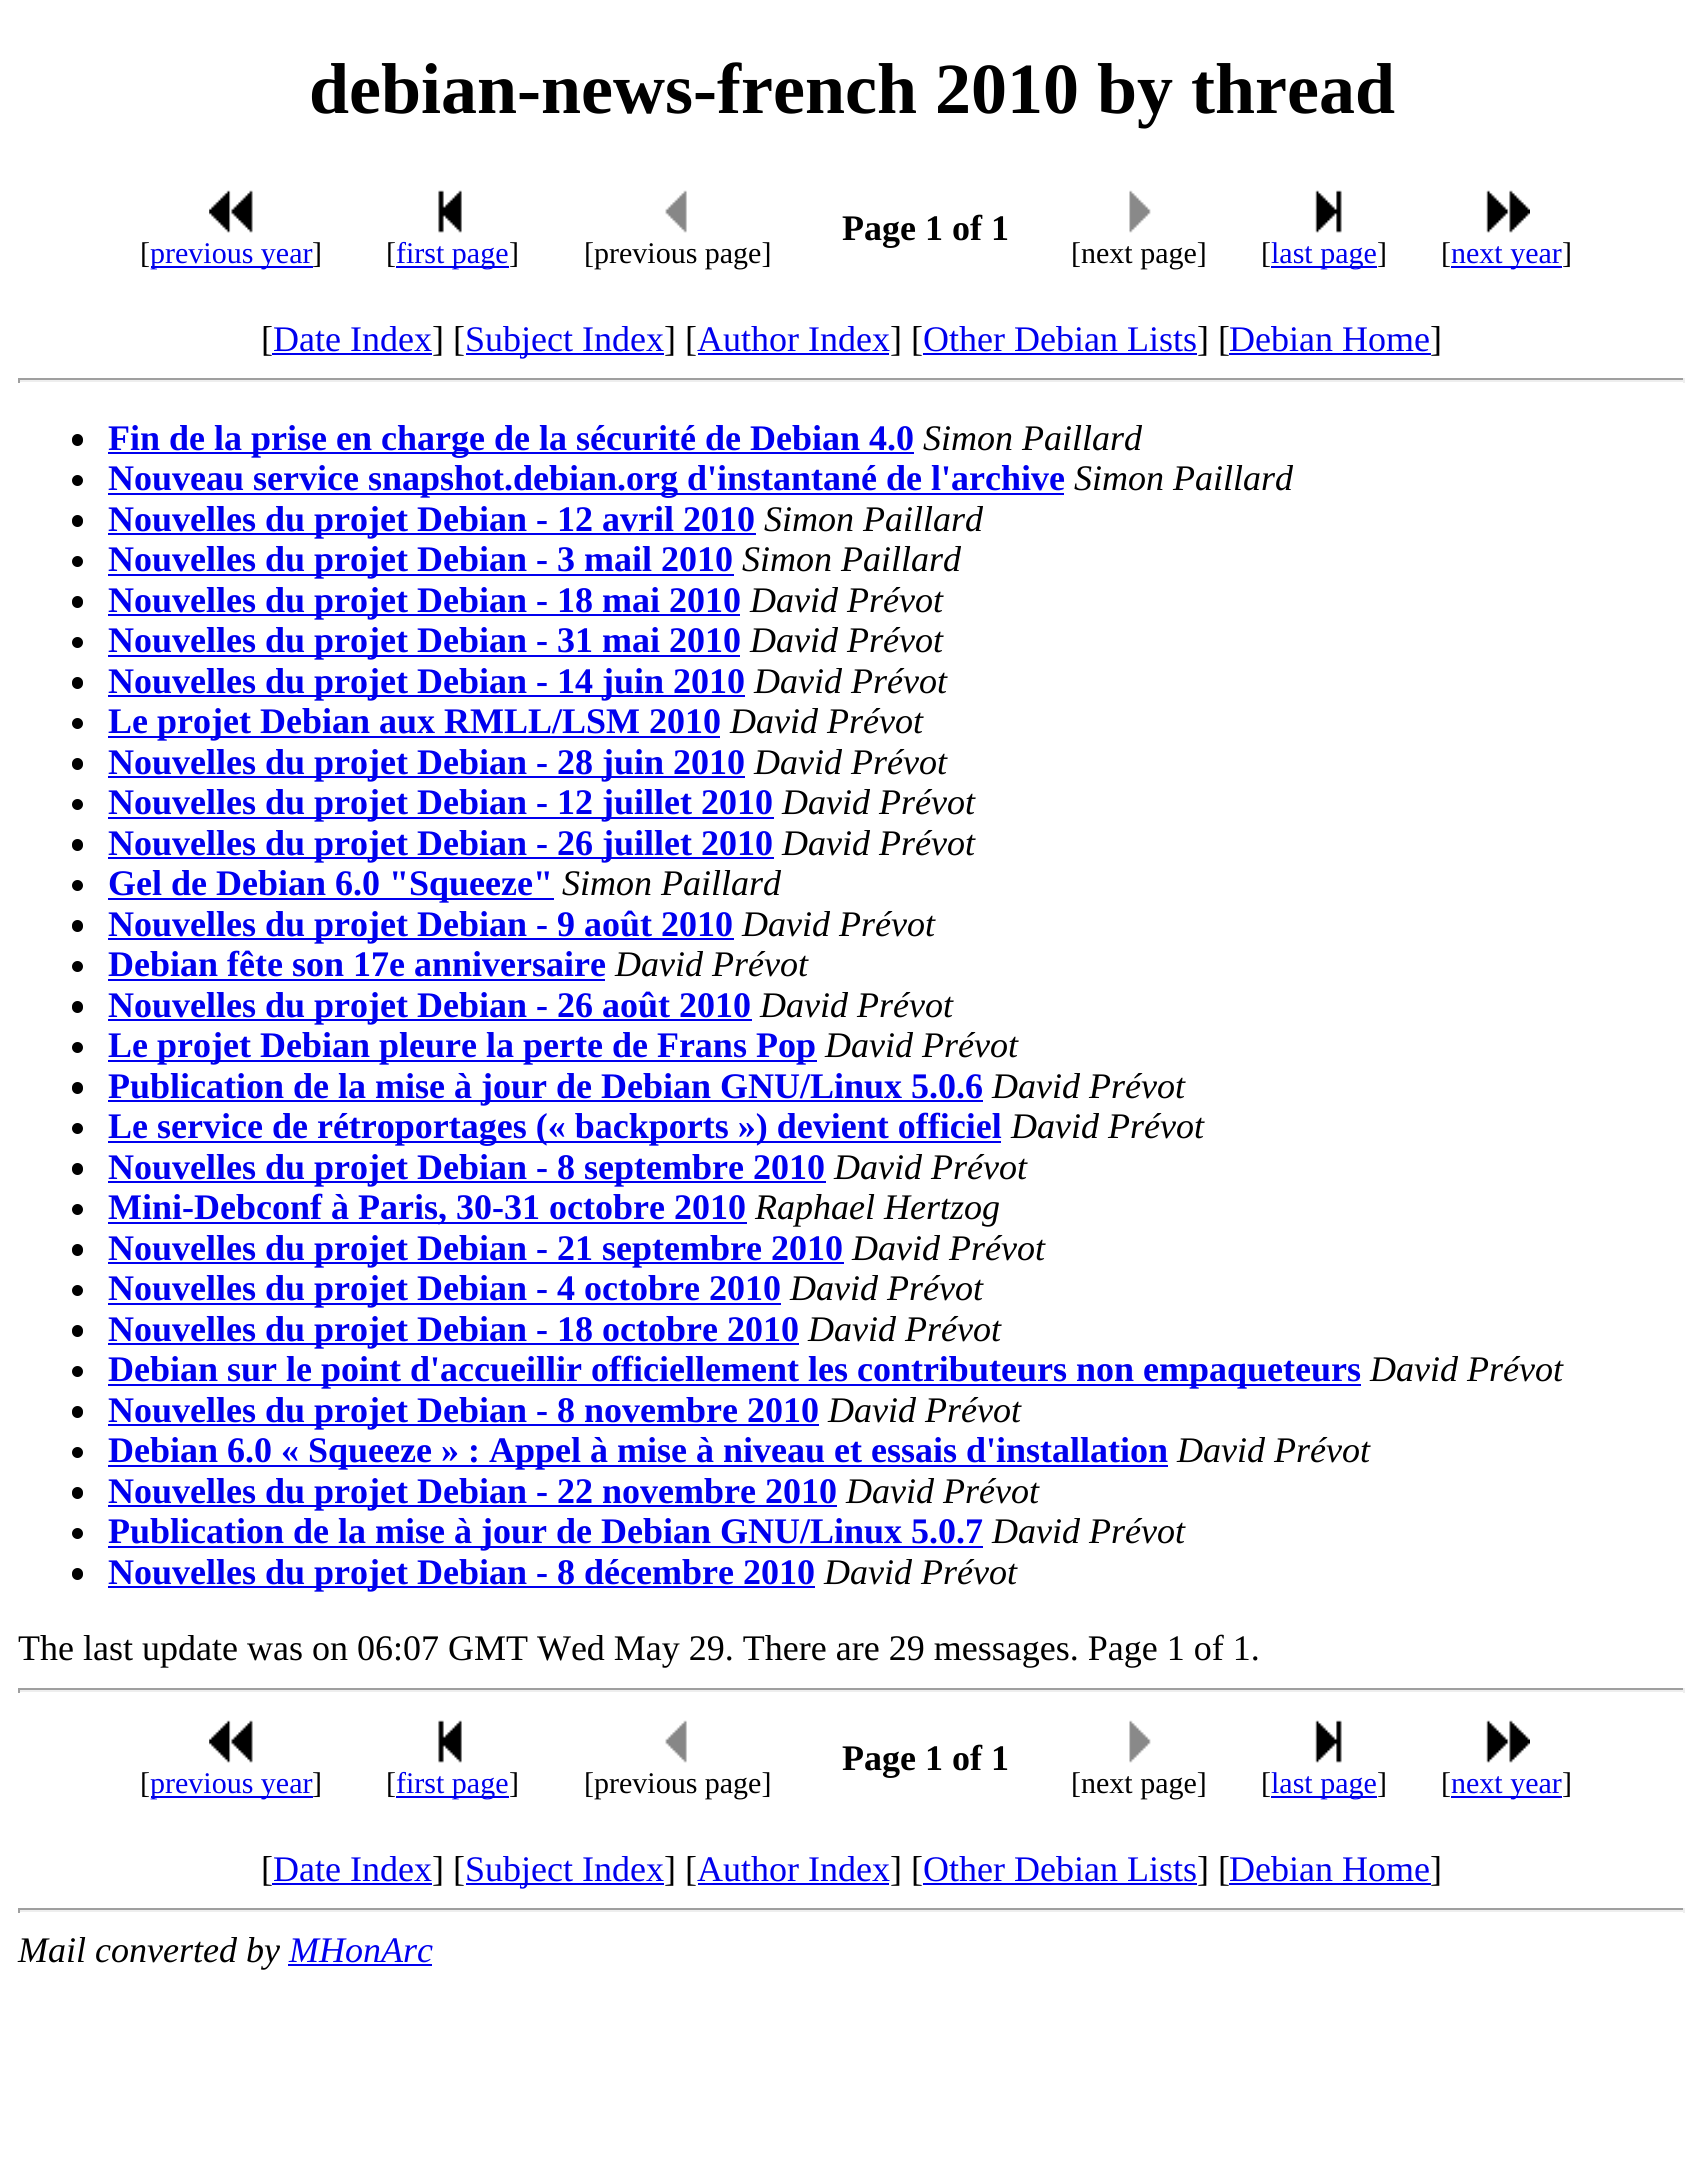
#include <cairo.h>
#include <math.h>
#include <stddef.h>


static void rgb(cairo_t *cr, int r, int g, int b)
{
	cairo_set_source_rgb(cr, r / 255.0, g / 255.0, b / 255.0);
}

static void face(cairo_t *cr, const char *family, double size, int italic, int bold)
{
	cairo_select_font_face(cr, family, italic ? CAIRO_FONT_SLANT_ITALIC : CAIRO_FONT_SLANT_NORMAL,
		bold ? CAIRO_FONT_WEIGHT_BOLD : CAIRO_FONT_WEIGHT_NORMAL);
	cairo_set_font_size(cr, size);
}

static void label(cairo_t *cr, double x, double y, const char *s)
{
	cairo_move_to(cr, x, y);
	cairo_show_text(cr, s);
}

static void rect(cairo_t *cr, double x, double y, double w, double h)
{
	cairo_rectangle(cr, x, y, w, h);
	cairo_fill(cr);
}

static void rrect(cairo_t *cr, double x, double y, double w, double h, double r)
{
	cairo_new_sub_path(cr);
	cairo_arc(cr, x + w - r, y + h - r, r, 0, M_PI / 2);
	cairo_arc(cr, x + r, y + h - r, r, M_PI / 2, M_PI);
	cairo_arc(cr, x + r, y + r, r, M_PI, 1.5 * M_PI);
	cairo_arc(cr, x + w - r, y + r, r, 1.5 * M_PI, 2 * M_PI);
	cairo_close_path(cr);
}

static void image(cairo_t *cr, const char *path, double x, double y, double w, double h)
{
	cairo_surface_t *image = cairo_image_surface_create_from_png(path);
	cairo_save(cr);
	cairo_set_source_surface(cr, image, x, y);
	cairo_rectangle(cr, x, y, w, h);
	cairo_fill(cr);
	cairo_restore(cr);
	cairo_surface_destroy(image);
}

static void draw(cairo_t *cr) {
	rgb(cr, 255, 255, 255);
	cairo_paint(cr);
	face(cr, "Liberation Serif", 72, 0, 1);
	rgb(cr, 0, 0, 0);
	label(cr, 309, 113, "debian-news-french 2010 by thread");
	face(cr, "Liberation Serif", 36, 0, 1);
	label(cr, 842, 240, "Page 1 of 1");
	image(cr, "image0.png", 209, 190, 44, 43);
	face(cr, "Liberation Serif", 30, 0, 0);
	label(cr, 140, 263, "[");
	rgb(cr, 0, 0, 238);
	rect(cr, 151, 266, 162, 2);
	label(cr, 150, 263, "previous year");
	rgb(cr, 0, 0, 0);
	label(cr, 312, 263, "]");
	image(cr, "image1.png", 438, 190, 24, 43);
	label(cr, 386, 263, "[");
	rgb(cr, 0, 0, 238);
	rect(cr, 396, 266, 113, 2);
	label(cr, 396, 263, "first page");
	rgb(cr, 0, 0, 0);
	label(cr, 509, 263, "]");
	image(cr, "image2.png", 665, 190, 22, 43);
	label(cr, 584, 263, "[previous page]");
	image(cr, "image3.png", 1129, 190, 22, 43);
	label(cr, 1071, 263, "[next page]");
	image(cr, "image4.png", 1315, 190, 27, 43);
	label(cr, 1261, 263, "[");
	rgb(cr, 0, 0, 238);
	rect(cr, 1271, 266, 106, 2);
	label(cr, 1271, 263, "last page");
	rgb(cr, 0, 0, 0);
	label(cr, 1377, 263, "]");
	image(cr, "image5.png", 1486, 190, 44, 43);
	label(cr, 1441, 263, "[");
	rgb(cr, 0, 0, 238);
	rect(cr, 1451, 266, 111, 2);
	label(cr, 1451, 263, "next year");
	rgb(cr, 0, 0, 0);
	label(cr, 1562, 263, "]");
	face(cr, "Liberation Serif", 36, 0, 0);
	label(cr, 261, 351, "[");
	rgb(cr, 0, 0, 238);
	label(cr, 273, 351, "Date Index");
	rect(cr, 272, 353, 160, 2);
	rgb(cr, 0, 0, 0);
	label(cr, 432, 351, "] [");
	rgb(cr, 0, 0, 238);
	rect(cr, 466, 353, 198, 2);
	label(cr, 465, 351, "Subject Index");
	rgb(cr, 0, 0, 0);
	label(cr, 664, 351, "] [");
	rgb(cr, 0, 0, 238);
	label(cr, 697, 351, "Author Index");
	rect(cr, 698, 353, 191, 2);
	rgb(cr, 0, 0, 0);
	label(cr, 890, 351, "] [");
	rgb(cr, 0, 0, 238);
	label(cr, 923, 351, "Other Debian Lists");
	rect(cr, 923, 353, 274, 2);
	rgb(cr, 0, 0, 0);
	label(cr, 1197, 351, "] [");
	rgb(cr, 0, 0, 238);
	label(cr, 1229, 351, "Debian Home");
	rect(cr, 1229, 353, 202, 2);
	rgb(cr, 0, 0, 0);
	label(cr, 1430, 351, "]");
	rgb(cr, 159, 159, 159);
	rect(cr, 18, 378, 1667, 2);
	rgb(cr, 238, 238, 238);
	rect(cr, 1683, 378, 2, 5);
	rect(cr, 18, 380, 1667, 2);
	rgb(cr, 159, 159, 159);
	rect(cr, 18, 378, 2, 5);
	rgb(cr, 0, 0, 0);
	rrect(cr, 72, 434, 11, 12, 5.5);
	cairo_fill(cr);
	rgb(cr, 0, 0, 238);
	rect(cr, 108, 452, 806, 2);
	face(cr, "Liberation Serif", 36, 0, 1);
	label(cr, 108, 450, "Fin de la prise en charge de la sécurité de Debian 4.0");
	face(cr, "Liberation Serif", 36, 1, 0);
	rgb(cr, 0, 0, 0);
	label(cr, 923, 450, "Simon Paillard");
	cairo_new_path(cr);
	cairo_arc(cr, 77.5, 480.5, 5.5, 0, 2 * M_PI);
	cairo_fill(cr);
	rgb(cr, 0, 0, 238);
	rect(cr, 108, 493, 956, 2);
	face(cr, "Liberation Serif", 36, 0, 1);
	label(cr, 108, 490, "Nouveau service snapshot.debian.org d'instantané de l'archive");
	face(cr, "Liberation Serif", 36, 1, 0);
	rgb(cr, 0, 0, 0);
	label(cr, 1074, 490, "Simon Paillard");
	rrect(cr, 72, 515, 11, 12, 5.5);
	cairo_fill(cr);
	rgb(cr, 0, 0, 238);
	rect(cr, 108, 533, 648, 2);
	face(cr, "Liberation Serif", 36, 0, 1);
	label(cr, 108, 531, "Nouvelles du projet Debian - 12 avril 2010");
	face(cr, "Liberation Serif", 36, 1, 0);
	rgb(cr, 0, 0, 0);
	label(cr, 764, 531, "Simon Paillard");
	cairo_new_path(cr);
	cairo_arc(cr, 77.5, 561.5, 5.5, 0, 2 * M_PI);
	cairo_fill(cr);
	rgb(cr, 0, 0, 238);
	rect(cr, 108, 574, 626, 2);
	face(cr, "Liberation Serif", 36, 0, 1);
	label(cr, 108, 571, "Nouvelles du projet Debian - 3 mail 2010");
	face(cr, "Liberation Serif", 36, 1, 0);
	rgb(cr, 0, 0, 0);
	label(cr, 742, 571, "Simon Paillard");
	rrect(cr, 72, 596, 11, 12, 5.5);
	cairo_fill(cr);
	rgb(cr, 0, 0, 238);
	rect(cr, 108, 614, 632, 2);
	face(cr, "Liberation Serif", 36, 0, 1);
	label(cr, 108, 612, "Nouvelles du projet Debian - 18 mai 2010");
	face(cr, "Liberation Serif", 36, 1, 0);
	rgb(cr, 0, 0, 0);
	label(cr, 750, 612, "David Prévot");
	cairo_new_path(cr);
	cairo_arc(cr, 77.5, 642.5, 5.5, 0, 2 * M_PI);
	cairo_fill(cr);
	rgb(cr, 0, 0, 238);
	rect(cr, 108, 655, 632, 2);
	face(cr, "Liberation Serif", 36, 0, 1);
	label(cr, 108, 652, "Nouvelles du projet Debian - 31 mai 2010");
	face(cr, "Liberation Serif", 36, 1, 0);
	rgb(cr, 0, 0, 0);
	label(cr, 750, 652, "David Prévot");
	rrect(cr, 72, 677, 11, 12, 5.5);
	cairo_fill(cr);
	rgb(cr, 0, 0, 238);
	rect(cr, 108, 695, 637, 2);
	face(cr, "Liberation Serif", 36, 0, 1);
	label(cr, 108, 693, "Nouvelles du projet Debian - 14 juin 2010");
	face(cr, "Liberation Serif", 36, 1, 0);
	rgb(cr, 0, 0, 0);
	label(cr, 754, 693, "David Prévot");
	cairo_new_path(cr);
	cairo_arc(cr, 77.5, 723.5, 5.5, 0, 2 * M_PI);
	cairo_fill(cr);
	rgb(cr, 0, 0, 238);
	rect(cr, 108, 736, 612, 2);
	face(cr, "Liberation Serif", 36, 0, 1);
	label(cr, 108, 733, "Le projet Debian aux RMLL/LSM 2010");
	face(cr, "Liberation Serif", 36, 1, 0);
	rgb(cr, 0, 0, 0);
	label(cr, 730, 733, "David Prévot");
	rrect(cr, 72, 758, 11, 12, 5.5);
	cairo_fill(cr);
	rgb(cr, 0, 0, 238);
	rect(cr, 108, 776, 637, 2);
	face(cr, "Liberation Serif", 36, 0, 1);
	label(cr, 108, 774, "Nouvelles du projet Debian - 28 juin 2010");
	face(cr, "Liberation Serif", 36, 1, 0);
	rgb(cr, 0, 0, 0);
	label(cr, 754, 774, "David Prévot");
	cairo_new_path(cr);
	cairo_arc(cr, 77.5, 804.5, 5.5, 0, 2 * M_PI);
	cairo_fill(cr);
	rgb(cr, 0, 0, 238);
	rect(cr, 108, 817, 666, 2);
	face(cr, "Liberation Serif", 36, 0, 1);
	label(cr, 108, 814, "Nouvelles du projet Debian - 12 juillet 2010");
	face(cr, "Liberation Serif", 36, 1, 0);
	rgb(cr, 0, 0, 0);
	label(cr, 782, 814, "David Prévot");
	rrect(cr, 72, 839, 11, 12, 5.5);
	cairo_fill(cr);
	rgb(cr, 0, 0, 238);
	rect(cr, 108, 857, 666, 2);
	face(cr, "Liberation Serif", 36, 0, 1);
	label(cr, 108, 855, "Nouvelles du projet Debian - 26 juillet 2010");
	face(cr, "Liberation Serif", 36, 1, 0);
	rgb(cr, 0, 0, 0);
	label(cr, 782, 855, "David Prévot");
	cairo_new_path(cr);
	cairo_arc(cr, 77.5, 885.5, 5.5, 0, 2 * M_PI);
	cairo_fill(cr);
	rgb(cr, 0, 0, 238);
	rect(cr, 108, 898, 446, 2);
	face(cr, "Liberation Serif", 36, 0, 1);
	label(cr, 108, 895, "Gel de Debian 6.0 \"Squeeze\"");
	face(cr, "Liberation Serif", 36, 1, 0);
	rgb(cr, 0, 0, 0);
	label(cr, 562, 895, "Simon Paillard");
	rrect(cr, 72, 920, 11, 12, 5.5);
	cairo_fill(cr);
	rgb(cr, 0, 0, 238);
	rect(cr, 108, 938, 626, 2);
	face(cr, "Liberation Serif", 36, 0, 1);
	label(cr, 108, 936, "Nouvelles du projet Debian - 9 août 2010");
	face(cr, "Liberation Serif", 36, 1, 0);
	rgb(cr, 0, 0, 0);
	label(cr, 742, 936, "David Prévot");
	cairo_new_path(cr);
	cairo_arc(cr, 77.5, 966.5, 5.5, 0, 2 * M_PI);
	cairo_fill(cr);
	face(cr, "Liberation Serif", 36, 0, 1);
	rgb(cr, 0, 0, 238);
	label(cr, 108, 976, "Debian fête son 17e anniversaire");
	rect(cr, 108, 979, 497, 2);
	face(cr, "Liberation Serif", 36, 1, 0);
	rgb(cr, 0, 0, 0);
	label(cr, 615, 976, "David Prévot");
	rrect(cr, 72, 1001, 11, 12, 5.5);
	cairo_fill(cr);
	rgb(cr, 0, 0, 238);
	rect(cr, 108, 1019, 644, 2);
	face(cr, "Liberation Serif", 36, 0, 1);
	label(cr, 108, 1017, "Nouvelles du projet Debian - 26 août 2010");
	face(cr, "Liberation Serif", 36, 1, 0);
	rgb(cr, 0, 0, 0);
	label(cr, 760, 1017, "David Prévot");
	cairo_new_path(cr);
	cairo_arc(cr, 77.5, 1047.5, 5.5, 0, 2 * M_PI);
	cairo_fill(cr);
	rgb(cr, 0, 0, 238);
	rect(cr, 108, 1060, 709, 2);
	face(cr, "Liberation Serif", 36, 0, 1);
	label(cr, 108, 1057, "Le projet Debian pleure la perte de Frans Pop");
	face(cr, "Liberation Serif", 36, 1, 0);
	rgb(cr, 0, 0, 0);
	label(cr, 825, 1057, "David Prévot");
	rrect(cr, 72, 1082, 11, 12, 5.5);
	cairo_fill(cr);
	rgb(cr, 0, 0, 238);
	rect(cr, 108, 1100, 875, 2);
	face(cr, "Liberation Serif", 36, 0, 1);
	label(cr, 108, 1098, "Publication de la mise à jour de Debian GNU/Linux 5.0.6");
	face(cr, "Liberation Serif", 36, 1, 0);
	rgb(cr, 0, 0, 0);
	label(cr, 992, 1098, "David Prévot");
	cairo_new_path(cr);
	cairo_arc(cr, 77.5, 1128.5, 5.5, 0, 2 * M_PI);
	cairo_fill(cr);
	rgb(cr, 0, 0, 238);
	rect(cr, 108, 1141, 893, 2);
	face(cr, "Liberation Serif", 36, 0, 1);
	label(cr, 108, 1138, "Le service de rétroportages (« backports ») devient officiel");
	face(cr, "Liberation Serif", 36, 1, 0);
	rgb(cr, 0, 0, 0);
	label(cr, 1011, 1138, "David Prévot");
	rrect(cr, 72, 1163, 11, 12, 5.5);
	cairo_fill(cr);
	rgb(cr, 0, 0, 238);
	rect(cr, 108, 1181, 718, 2);
	face(cr, "Liberation Serif", 36, 0, 1);
	label(cr, 108, 1179, "Nouvelles du projet Debian - 8 septembre 2010");
	face(cr, "Liberation Serif", 36, 1, 0);
	rgb(cr, 0, 0, 0);
	label(cr, 834, 1179, "David Prévot");
	cairo_new_path(cr);
	cairo_arc(cr, 77.5, 1209.5, 5.5, 0, 2 * M_PI);
	cairo_fill(cr);
	rgb(cr, 0, 0, 238);
	rect(cr, 108, 1222, 639, 2);
	face(cr, "Liberation Serif", 36, 0, 1);
	label(cr, 108, 1219, "Mini-Debconf à Paris, 30-31 octobre 2010");
	face(cr, "Liberation Serif", 36, 1, 0);
	rgb(cr, 0, 0, 0);
	label(cr, 755, 1219, "Raphael Hertzog");
	rrect(cr, 72, 1244, 11, 12, 5.5);
	cairo_fill(cr);
	rgb(cr, 0, 0, 238);
	rect(cr, 108, 1262, 736, 2);
	face(cr, "Liberation Serif", 36, 0, 1);
	label(cr, 108, 1260, "Nouvelles du projet Debian - 21 septembre 2010");
	face(cr, "Liberation Serif", 36, 1, 0);
	rgb(cr, 0, 0, 0);
	label(cr, 852, 1260, "David Prévot");
	cairo_new_path(cr);
	cairo_arc(cr, 77.5, 1290.5, 5.5, 0, 2 * M_PI);
	cairo_fill(cr);
	rgb(cr, 0, 0, 238);
	rect(cr, 108, 1303, 673, 2);
	face(cr, "Liberation Serif", 36, 0, 1);
	label(cr, 108, 1300, "Nouvelles du projet Debian - 4 octobre 2010");
	face(cr, "Liberation Serif", 36, 1, 0);
	rgb(cr, 0, 0, 0);
	label(cr, 790, 1300, "David Prévot");
	rrect(cr, 72, 1325, 11, 12, 5.5);
	cairo_fill(cr);
	rgb(cr, 0, 0, 238);
	rect(cr, 108, 1343, 691, 2);
	face(cr, "Liberation Serif", 36, 0, 1);
	label(cr, 108, 1341, "Nouvelles du projet Debian - 18 octobre 2010");
	face(cr, "Liberation Serif", 36, 1, 0);
	rgb(cr, 0, 0, 0);
	label(cr, 808, 1341, "David Prévot");
	cairo_new_path(cr);
	cairo_arc(cr, 77.5, 1371.5, 5.5, 0, 2 * M_PI);
	cairo_fill(cr);
	rgb(cr, 0, 0, 238);
	rect(cr, 108, 1384, 1253, 2);
	face(cr, "Liberation Serif", 36, 0, 1);
	label(cr, 108, 1381, "Debian sur le point d'accueillir officiellement les contributeurs non empaqueteurs");
	face(cr, "Liberation Serif", 36, 1, 0);
	rgb(cr, 0, 0, 0);
	label(cr, 1370, 1381, "David Prévot");
	rrect(cr, 72, 1406, 11, 12, 5.5);
	cairo_fill(cr);
	rgb(cr, 0, 0, 238);
	rect(cr, 108, 1424, 711, 2);
	face(cr, "Liberation Serif", 36, 0, 1);
	label(cr, 108, 1422, "Nouvelles du projet Debian - 8 novembre 2010");
	face(cr, "Liberation Serif", 36, 1, 0);
	rgb(cr, 0, 0, 0);
	label(cr, 828, 1422, "David Prévot");
	cairo_new_path(cr);
	cairo_arc(cr, 77.5, 1452.5, 5.5, 0, 2 * M_PI);
	cairo_fill(cr);
	rgb(cr, 0, 0, 238);
	rect(cr, 108, 1465, 1060, 2);
	face(cr, "Liberation Serif", 36, 0, 1);
	label(cr, 108, 1462, "Debian 6.0 « Squeeze » : Appel à mise à niveau et essais d'installation");
	face(cr, "Liberation Serif", 36, 1, 0);
	rgb(cr, 0, 0, 0);
	label(cr, 1177, 1462, "David Prévot");
	rrect(cr, 72, 1487, 11, 12, 5.5);
	cairo_fill(cr);
	rgb(cr, 0, 0, 238);
	rect(cr, 108, 1505, 729, 2);
	face(cr, "Liberation Serif", 36, 0, 1);
	label(cr, 108, 1503, "Nouvelles du projet Debian - 22 novembre 2010");
	face(cr, "Liberation Serif", 36, 1, 0);
	rgb(cr, 0, 0, 0);
	label(cr, 846, 1503, "David Prévot");
	cairo_new_path(cr);
	cairo_arc(cr, 77.5, 1533.5, 5.5, 0, 2 * M_PI);
	cairo_fill(cr);
	rgb(cr, 0, 0, 238);
	rect(cr, 108, 1546, 875, 2);
	face(cr, "Liberation Serif", 36, 0, 1);
	label(cr, 108, 1543, "Publication de la mise à jour de Debian GNU/Linux 5.0.7");
	face(cr, "Liberation Serif", 36, 1, 0);
	rgb(cr, 0, 0, 0);
	label(cr, 992, 1543, "David Prévot");
	rrect(cr, 72, 1568, 11, 12, 5.5);
	cairo_fill(cr);
	rgb(cr, 0, 0, 238);
	rect(cr, 108, 1586, 707, 2);
	face(cr, "Liberation Serif", 36, 0, 1);
	label(cr, 108, 1584, "Nouvelles du projet Debian - 8 décembre 2010");
	face(cr, "Liberation Serif", 36, 1, 0);
	rgb(cr, 0, 0, 0);
	label(cr, 824, 1584, "David Prévot");
	face(cr, "Liberation Serif", 36, 0, 0);
	label(cr, 18, 1660, "The last update was on 06:07 GMT Wed May 29. There are 29 messages. Page 1 of 1.");
	rgb(cr, 159, 159, 159);
	rect(cr, 18, 1688, 1667, 2);
	rgb(cr, 238, 238, 238);
	rect(cr, 1683, 1688, 2, 5);
	rect(cr, 18, 1690, 1667, 2);
	rgb(cr, 159, 159, 159);
	rect(cr, 18, 1688, 2, 5);
	face(cr, "Liberation Serif", 36, 0, 1);
	rgb(cr, 0, 0, 0);
	label(cr, 842, 1770, "Page 1 of 1");
	image(cr, "image0.png", 209, 1720, 44, 43);
	face(cr, "Liberation Serif", 30, 0, 0);
	label(cr, 140, 1793, "[");
	rgb(cr, 0, 0, 238);
	rect(cr, 151, 1796, 162, 2);
	label(cr, 150, 1793, "previous year");
	rgb(cr, 0, 0, 0);
	label(cr, 312, 1793, "]");
	image(cr, "image1.png", 438, 1720, 24, 43);
	label(cr, 386, 1793, "[");
	rgb(cr, 0, 0, 238);
	rect(cr, 396, 1796, 113, 2);
	label(cr, 396, 1793, "first page");
	rgb(cr, 0, 0, 0);
	label(cr, 509, 1793, "]");
	image(cr, "image2.png", 665, 1720, 22, 43);
	label(cr, 584, 1793, "[previous page]");
	image(cr, "image3.png", 1129, 1720, 22, 43);
	label(cr, 1071, 1793, "[next page]");
	image(cr, "image4.png", 1315, 1720, 27, 43);
	label(cr, 1261, 1793, "[");
	rgb(cr, 0, 0, 238);
	rect(cr, 1271, 1796, 106, 2);
	label(cr, 1271, 1793, "last page");
	rgb(cr, 0, 0, 0);
	label(cr, 1377, 1793, "]");
	image(cr, "image5.png", 1486, 1720, 44, 43);
	label(cr, 1441, 1793, "[");
	rgb(cr, 0, 0, 238);
	rect(cr, 1451, 1796, 111, 2);
	label(cr, 1451, 1793, "next year");
	rgb(cr, 0, 0, 0);
	label(cr, 1562, 1793, "]");
	face(cr, "Liberation Serif", 36, 0, 0);
	label(cr, 261, 1881, "[");
	rgb(cr, 0, 0, 238);
	label(cr, 273, 1881, "Date Index");
	rect(cr, 272, 1883, 160, 2);
	rgb(cr, 0, 0, 0);
	label(cr, 432, 1881, "] [");
	rgb(cr, 0, 0, 238);
	rect(cr, 466, 1883, 198, 2);
	label(cr, 465, 1881, "Subject Index");
	rgb(cr, 0, 0, 0);
	label(cr, 664, 1881, "] [");
	rgb(cr, 0, 0, 238);
	label(cr, 697, 1881, "Author Index");
	rect(cr, 698, 1883, 191, 2);
	rgb(cr, 0, 0, 0);
	label(cr, 890, 1881, "] [");
	rgb(cr, 0, 0, 238);
	label(cr, 923, 1881, "Other Debian Lists");
	rect(cr, 923, 1883, 274, 2);
	rgb(cr, 0, 0, 0);
	label(cr, 1197, 1881, "] [");
	rgb(cr, 0, 0, 238);
	label(cr, 1229, 1881, "Debian Home");
	rect(cr, 1229, 1883, 202, 2);
	rgb(cr, 0, 0, 0);
	label(cr, 1430, 1881, "]");
	rgb(cr, 159, 159, 159);
	rect(cr, 18, 1908, 1667, 2);
	rgb(cr, 238, 238, 238);
	rect(cr, 1683, 1908, 2, 5);
	rect(cr, 18, 1910, 1667, 2);
	rgb(cr, 159, 159, 159);
	rect(cr, 18, 1908, 2, 5);
	face(cr, "Liberation Serif", 36, 1, 0);
	rgb(cr, 0, 0, 0);
	label(cr, 18, 1962, "Mail converted by");
	rgb(cr, 0, 0, 238);
	label(cr, 289, 1962, "MHonArc");
	rect(cr, 288, 1964, 144, 2);
}

int main(void) {
	cairo_surface_t *surface = cairo_image_surface_create(CAIRO_FORMAT_RGB24, 1703, 2179);
	cairo_t *cr = cairo_create(surface);
	cairo_font_options_t *options = cairo_font_options_create();
	cairo_font_options_set_hint_metrics(options, CAIRO_HINT_METRICS_OFF);
	cairo_font_options_set_hint_style(options, CAIRO_HINT_STYLE_NONE);
	cairo_set_font_options(cr, options);
	cairo_set_miter_limit(cr, 4);
	draw(cr);
	cairo_surface_write_to_png(surface, "render.png");
	cairo_font_options_destroy(options);
	cairo_destroy(cr);
	cairo_surface_destroy(surface);
	return 0;
}
